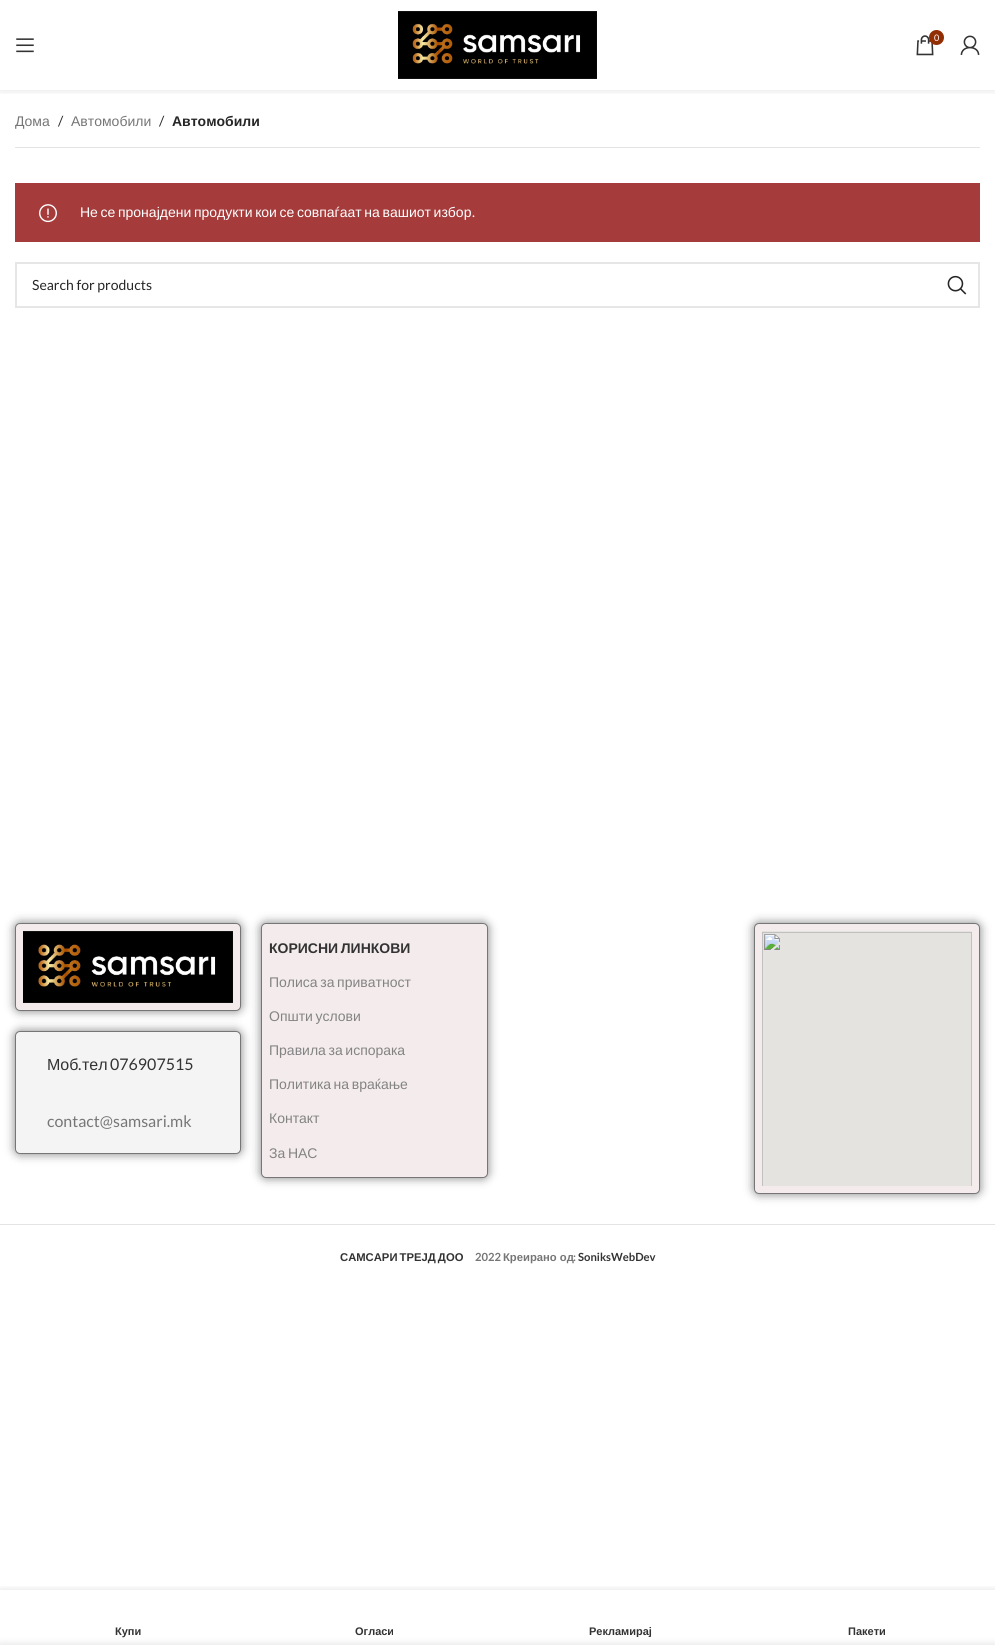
#include <cairo.h>
#include <math.h>
#include <stddef.h>


static void rgb(cairo_t *cr, int r, int g, int b)
{
	cairo_set_source_rgb(cr, r / 255.0, g / 255.0, b / 255.0);
}

static void face(cairo_t *cr, const char *family, double size, int italic, int bold)
{
	cairo_select_font_face(cr, family, italic ? CAIRO_FONT_SLANT_ITALIC : CAIRO_FONT_SLANT_NORMAL,
		bold ? CAIRO_FONT_WEIGHT_BOLD : CAIRO_FONT_WEIGHT_NORMAL);
	cairo_set_font_size(cr, size);
}

static void label(cairo_t *cr, double x, double y, const char *s)
{
	cairo_move_to(cr, x, y);
	cairo_show_text(cr, s);
}

static void tracked(cairo_t *cr, double x, double y, const char *s, double letter, double word)
{
	cairo_move_to(cr, x, y);
	while (*s) {
		char ch[5] = {0};
		int n = 0;
		do ch[n++] = *s++; while ((*s & 0xC0) == 0x80);
		cairo_show_text(cr, ch);
		cairo_rel_move_to(cr, letter + word * (*ch == ' '), 0);
	}
}

static void rect(cairo_t *cr, double x, double y, double w, double h)
{
	cairo_rectangle(cr, x, y, w, h);
	cairo_fill(cr);
}

static void rrect(cairo_t *cr, double x, double y, double w, double h, double r)
{
	cairo_new_sub_path(cr);
	cairo_arc(cr, x + w - r, y + h - r, r, 0, M_PI / 2);
	cairo_arc(cr, x + r, y + h - r, r, M_PI / 2, M_PI);
	cairo_arc(cr, x + r, y + r, r, M_PI, 1.5 * M_PI);
	cairo_arc(cr, x + w - r, y + r, r, 1.5 * M_PI, 2 * M_PI);
	cairo_close_path(cr);
}

static void soft_shadow(cairo_t *cr, double x, double y, double w, double h, double r, double blur, double alpha)
{
	cairo_push_group_with_content(cr, CAIRO_CONTENT_ALPHA);
	cairo_set_operator(cr, CAIRO_OPERATOR_SOURCE);
	for (int i = 15; i >= -15 && fmin(w, h) + blur * i / 3 > 0; i -= 2) {
		double e = blur * i / 6;
		cairo_set_source_rgba(cr, 0, 0, 0, alpha * erfc((i - 1) / 8.5) / 2);
		rrect(cr, x - e, y - e, w + 2 * e, h + 2 * e, fmax(0, fmin(r + e + blur * .6, fmin(w, h) / 2 + e)));
		cairo_fill(cr);
	}
	cairo_pattern_t *soft = cairo_pop_group(cr);
	cairo_mask(cr, soft);
	cairo_pattern_destroy(soft);
}

static void image(cairo_t *cr, const char *path, double x, double y, double w, double h)
{
	cairo_surface_t *image = cairo_image_surface_create_from_png(path);
	cairo_save(cr);
	cairo_set_source_surface(cr, image, x, y);
	cairo_rectangle(cr, x, y, w, h);
	cairo_fill(cr);
	cairo_restore(cr);
	cairo_surface_destroy(image);
}

static void draw(cairo_t *cr) {
	rgb(cr, 255, 255, 255);
	cairo_paint(cr);
	cairo_save(cr);
	cairo_rectangle(cr, 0, 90, 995, 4);
	cairo_clip(cr);
	rgb(cr, 0, 0, 0);
	soft_shadow(cr, 0, 1, 995, 90, 0, 4, 0.1);
	cairo_restore(cr);
	image(cr, "image0.png", 16, 38, 18, 15);
	image(cr, "image1.png", 398, 11, 199, 68);
	image(cr, "image2.png", 916, 35, 18, 21);
	rgb(cr, 145, 46, 4);
	cairo_arc(cr, 936.5, 37.5, 7.5, 0, 2 * M_PI);
	cairo_fill(cr);
	face(cr, "Lato", 9, 0, 0);
	rgb(cr, 255, 255, 255);
	label(cr, 934, 41, "0");
	image(cr, "image3.png", 960, 35, 20, 20);
	rgb(cr, 228, 228, 228);
	rect(cr, 15, 147, 965, 1);
	face(cr, "Liberation Sans", 14, 0, 0);
	rgb(cr, 118, 118, 118);
	label(cr, 15, 126, "Дома");
	face(cr, "Lato", 14, 0, 0);
	rgb(cr, 38, 38, 38);
	label(cr, 58, 126, "/");
	face(cr, "Liberation Sans", 14, 0, 0);
	rgb(cr, 118, 118, 118);
	label(cr, 71, 126, "Автомобили");
	face(cr, "Lato", 14, 0, 0);
	rgb(cr, 38, 38, 38);
	label(cr, 159, 126, "/");
	face(cr, "Liberation Sans", 14, 0, 1);
	label(cr, 172, 126, "Автомобили");
	rgb(cr, 165, 59, 59);
	rect(cr, 15, 183, 965, 59);
	image(cr, "image4.png", 39, 204, 18, 19);
	face(cr, "Liberation Sans", 14, 0, 0);
	rgb(cr, 255, 255, 255);
	tracked(cr, 80, 217, "Не се пронајдени продукти кои се совпаѓаат на вашиот избор", 0, -1.25);
	face(cr, "Lato", 14, 0, 0);
	label(cr, 472, 217, ".");
	cairo_rectangle(cr, 16, 263, 963, 44);
	rgb(cr, 230, 230, 230);
	cairo_stroke(cr);
	rgb(cr, 38, 38, 38);
	label(cr, 32, 290, "Search for products");
	image(cr, "image5.png", 947, 275, 20, 20);
	rgb(cr, 0, 0, 0);
	soft_shadow(cr, 15, 923, 226, 88, 5, 5, 0.5);
	rgb(cr, 244, 236, 236);
	rrect(cr, 15.5, 923.5, 225, 87, 4.5);
	cairo_fill_preserve(cr);
	rgb(cr, 118, 118, 118);
	cairo_set_line_width(cr, 1);
	cairo_stroke(cr);
	image(cr, "image6.png", 23, 931, 210, 72);
	rgb(cr, 0, 0, 0);
	soft_shadow(cr, 15, 1031, 226, 123, 5, 5, 0.5);
	rgb(cr, 244, 244, 244);
	rrect(cr, 15.5, 1031.5, 225, 122, 4.5);
	cairo_fill_preserve(cr);
	rgb(cr, 118, 118, 118);
	cairo_stroke(cr);
	face(cr, "Liberation Sans", 16, 0, 0);
	rgb(cr, 51, 51, 51);
	label(cr, 47, 1070, "Моб");
	face(cr, "Lato", 16, 0, 0);
	label(cr, 78, 1070, ".");
	face(cr, "Liberation Sans", 16, 0, 0);
	label(cr, 82, 1070, "тел");
	face(cr, "Lato", 16, 0, 0);
	label(cr, 110, 1070, "076907515");
	rgb(cr, 118, 118, 118);
	label(cr, 47, 1127, "contact@samsari.mk");
	rgb(cr, 0, 0, 0);
	soft_shadow(cr, 261, 923, 227, 255, 5, 5, 0.5);
	rgb(cr, 244, 236, 236);
	rrect(cr, 261.5, 923.5, 226, 254, 4.5);
	cairo_fill_preserve(cr);
	rgb(cr, 118, 118, 118);
	cairo_stroke(cr);
	face(cr, "Liberation Sans", 14, 0, 1);
	rgb(cr, 51, 51, 51);
	tracked(cr, 269, 953, "КОРИСНИ ЛИНКОВИ", 0, -1.25);
	face(cr, "Liberation Sans", 14, 0, 0);
	rgb(cr, 131, 131, 131);
	tracked(cr, 269, 987, "Полиса за приватност", 0, -1.25);
	tracked(cr, 269, 1021, "Општи услови", 0, -1.25);
	tracked(cr, 269, 1055, "Правила за испорака", 0, -1.25);
	tracked(cr, 269, 1089, "Политика на враќање", 0, -1.25);
	label(cr, 269, 1123, "Контакт");
	tracked(cr, 269, 1158, "За НАС", 0, -1.25);
	rgb(cr, 0, 0, 0);
	soft_shadow(cr, 754, 923, 226, 271, 5, 5, 0.5);
	rgb(cr, 244, 236, 236);
	rrect(cr, 754.5, 923.5, 225, 270, 4.5);
	cairo_fill_preserve(cr);
	rgb(cr, 118, 118, 118);
	cairo_stroke(cr);
	image(cr, "image7.png", 762, 931, 210, 255);
	rgb(cr, 228, 228, 228);
	rect(cr, 0, 1224, 995, 1);
	face(cr, "Liberation Sans", 11.25, 0, 1);
	rgb(cr, 51, 51, 51);
	tracked(cr, 340, 1261, "САМСАРИ ТРЕЈД ДОО", 0, -1);
	face(cr, "Lato", 11.25, 0, 1);
	rgb(cr, 118, 118, 118);
	label(cr, 475, 1261, "2022");
	face(cr, "Liberation Sans", 11.25, 0, 1);
	label(cr, 503, 1261, "Креирано од");
	face(cr, "Lato", 11.25, 0, 1);
	label(cr, 573, 1261, ":");
	rgb(cr, 51, 51, 51);
	label(cr, 578, 1261, "SoniksWebDev");
	cairo_save(cr);
	cairo_rectangle(cr, 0, 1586, 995, 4);
	cairo_clip(cr);
	rgb(cr, 0, 0, 0);
	soft_shadow(cr, 0, 1590, 995, 55, 0, 4.5, 0.12);
	cairo_restore(cr);
	face(cr, "Liberation Sans", 11, 0, 1);
	label(cr, 115, 1635, "Купи");
	label(cr, 355, 1635, "Огласи");
	cairo_save(cr);
	cairo_rectangle(cr, 508, 1624, 226, 13);
	cairo_clip(cr);
	label(cr, 589, 1635, "Рекламирај");
	cairo_restore(cr);
	label(cr, 848, 1635, "Пакети");
	rgb(cr, 0, 0, 0);
	soft_shadow(cr, 0, 1645, 995, 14, 0, 4.5, 0.14);
}

int main(void) {
	cairo_surface_t *surface = cairo_image_surface_create(CAIRO_FORMAT_RGB24, 995, 1645);
	cairo_t *cr = cairo_create(surface);
	cairo_font_options_t *options = cairo_font_options_create();
	cairo_font_options_set_hint_metrics(options, CAIRO_HINT_METRICS_OFF);
	cairo_font_options_set_hint_style(options, CAIRO_HINT_STYLE_NONE);
	cairo_set_font_options(cr, options);
	cairo_set_miter_limit(cr, 4);
	draw(cr);
	cairo_surface_write_to_png(surface, "render.png");
	cairo_font_options_destroy(options);
	cairo_destroy(cr);
	cairo_surface_destroy(surface);
	return 0;
}
